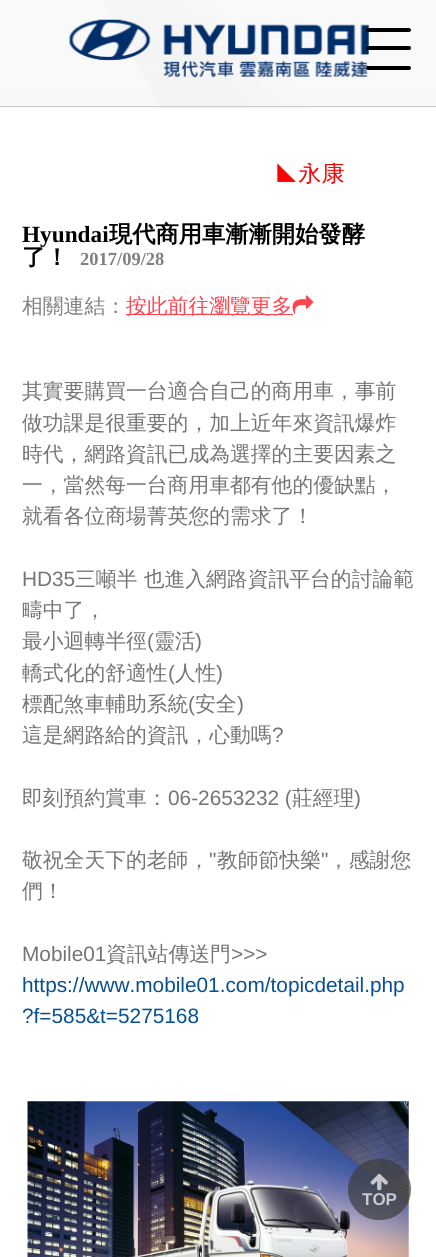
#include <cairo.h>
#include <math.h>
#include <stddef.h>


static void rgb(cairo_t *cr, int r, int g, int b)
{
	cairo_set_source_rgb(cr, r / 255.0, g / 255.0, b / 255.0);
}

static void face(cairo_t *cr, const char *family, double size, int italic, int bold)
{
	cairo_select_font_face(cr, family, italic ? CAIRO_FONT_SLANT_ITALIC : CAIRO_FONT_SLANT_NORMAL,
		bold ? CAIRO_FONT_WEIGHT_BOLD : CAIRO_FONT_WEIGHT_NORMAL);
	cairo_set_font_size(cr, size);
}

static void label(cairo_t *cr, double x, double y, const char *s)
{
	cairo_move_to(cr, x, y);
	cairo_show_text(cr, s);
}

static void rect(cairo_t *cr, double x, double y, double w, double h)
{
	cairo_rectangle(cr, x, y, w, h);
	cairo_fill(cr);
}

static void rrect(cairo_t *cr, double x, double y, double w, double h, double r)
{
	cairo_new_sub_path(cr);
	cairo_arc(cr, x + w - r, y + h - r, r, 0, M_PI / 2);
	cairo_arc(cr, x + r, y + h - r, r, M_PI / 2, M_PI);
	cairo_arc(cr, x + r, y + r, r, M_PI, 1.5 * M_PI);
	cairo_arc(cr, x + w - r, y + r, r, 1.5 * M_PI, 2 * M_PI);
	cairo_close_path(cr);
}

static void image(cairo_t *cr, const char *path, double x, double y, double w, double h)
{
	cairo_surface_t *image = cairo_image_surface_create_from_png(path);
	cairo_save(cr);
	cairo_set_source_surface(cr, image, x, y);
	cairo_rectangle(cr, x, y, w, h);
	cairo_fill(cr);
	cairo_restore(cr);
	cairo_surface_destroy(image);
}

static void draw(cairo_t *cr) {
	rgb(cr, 255, 255, 255);
	cairo_paint(cr);
	image(cr, "image0.png", 0, 0, 436, 108);
	image(cr, "image1.png", 69, 19, 300, 59);
	rgb(cr, 0, 0, 0);
	rrect(cr, 366, 28, 45, 4, 2);
	cairo_fill(cr);
	rrect(cr, 366, 46, 45, 4, 2);
	cairo_fill(cr);
	rrect(cr, 366, 66, 45, 4, 2);
	cairo_fill(cr);
	rgb(cr, 204, 204, 204);
	rect(cr, 0, 106, 436, 1);
	cairo_save(cr);
	cairo_rectangle(cr, 88, 163, 261, 23);
	cairo_clip(cr);
	face(cr, "WenQuanYi Zen Hei Medium", 23.25, 0, 0);
	rgb(cr, 255, 0, 0);
	label(cr, 275, 181, "◣永康");
	cairo_restore(cr);
	face(cr, "Liberation Serif", 23.25, 0, 1);
	rgb(cr, 0, 0, 0);
	label(cr, 22, 242, "Hyundai");
	face(cr, "WenQuanYi Zen Hei", 23.25, 0, 1);
	label(cr, 109, 242, "現代商用車漸漸開始發酵");
	label(cr, 22, 265, "了！");
	face(cr, "Liberation Serif", 18.5, 0, 1);
	rgb(cr, 128, 128, 128);
	label(cr, 80, 265, "2017/09/28");
	face(cr, "WenQuanYi Zen Hei Medium", 20.8, 0, 0);
	label(cr, 22, 313, "相關連結：");
	rgb(cr, 253, 69, 79);
	rect(cr, 126, 314, 167, 1);
	label(cr, 126, 313, "按此前往瀏覽更多");
	image(cr, "image2.png", 292, 295, 22, 19);
	rgb(cr, 116, 116, 116);
	label(cr, 22, 398, "其實要購買一台適合自己的商用車，事前");
	label(cr, 22, 430, "做功課是很重要的，加上近年來資訊爆炸");
	label(cr, 22, 461, "時代，網路資訊已成為選擇的主要因素之");
	label(cr, 22, 492, "一，當然每一台商用車都有他的優缺點，");
	label(cr, 22, 523, "就看各位商場菁英您的需求了！");
	face(cr, "Liberation Sans", 20.8, 0, 0);
	label(cr, 22, 586, "HD35");
	face(cr, "WenQuanYi Zen Hei Medium", 20.8, 0, 0);
	label(cr, 75, 586, "三噸半 也進入網路資訊平台的討論範");
	label(cr, 22, 617, "疇中了，");
	label(cr, 22, 648, "最小迴轉半徑");
	face(cr, "Liberation Sans", 20.8, 0, 0);
	label(cr, 147, 648, "(");
	face(cr, "WenQuanYi Zen Hei Medium", 20.8, 0, 0);
	label(cr, 154, 648, "靈活");
	face(cr, "Liberation Sans", 20.8, 0, 0);
	label(cr, 195, 648, ")");
	face(cr, "WenQuanYi Zen Hei Medium", 20.8, 0, 0);
	label(cr, 22, 680, "轎式化的舒適性");
	face(cr, "Liberation Sans", 20.8, 0, 0);
	label(cr, 168, 680, "(");
	face(cr, "WenQuanYi Zen Hei Medium", 20.8, 0, 0);
	label(cr, 175, 680, "人性");
	face(cr, "Liberation Sans", 20.8, 0, 0);
	label(cr, 216, 680, ")");
	face(cr, "WenQuanYi Zen Hei Medium", 20.8, 0, 0);
	label(cr, 22, 711, "標配煞車輔助系統");
	face(cr, "Liberation Sans", 20.8, 0, 0);
	label(cr, 188, 711, "(");
	face(cr, "WenQuanYi Zen Hei Medium", 20.8, 0, 0);
	label(cr, 195, 711, "安全");
	face(cr, "Liberation Sans", 20.8, 0, 0);
	label(cr, 237, 711, ")");
	face(cr, "WenQuanYi Zen Hei Medium", 20.8, 0, 0);
	label(cr, 22, 742, "這是網路給的資訊，心動嗎");
	face(cr, "Liberation Sans", 20.8, 0, 0);
	label(cr, 272, 742, "?");
	face(cr, "WenQuanYi Zen Hei Medium", 20.8, 0, 0);
	label(cr, 22, 805, "即刻預約賞車：");
	face(cr, "Liberation Sans", 20.8, 0, 0);
	label(cr, 168, 805, "06-2653232 (");
	face(cr, "WenQuanYi Zen Hei Medium", 20.8, 0, 0);
	label(cr, 292, 805, "莊經理");
	face(cr, "Liberation Sans", 20.8, 0, 0);
	label(cr, 354, 805, ")");
	face(cr, "WenQuanYi Zen Hei Medium", 20.8, 0, 0);
	label(cr, 22, 867, "敬祝全天下的老師，");
	face(cr, "Liberation Sans", 20.8, 0, 0);
	label(cr, 209, 867, "\"");
	face(cr, "WenQuanYi Zen Hei Medium", 20.8, 0, 0);
	label(cr, 217, 867, "教師節快樂");
	face(cr, "Liberation Sans", 20.8, 0, 0);
	label(cr, 321, 867, "\"");
	face(cr, "WenQuanYi Zen Hei Medium", 20.8, 0, 0);
	label(cr, 328, 867, "，感謝您");
	label(cr, 22, 898, "們！");
	face(cr, "Liberation Sans", 20.8, 0, 0);
	label(cr, 22, 961, "Mobile01");
	face(cr, "WenQuanYi Zen Hei Medium", 20.8, 0, 0);
	label(cr, 106, 961, "資訊站傳送門");
	face(cr, "Liberation Sans", 20.8, 0, 0);
	label(cr, 231, 961, ">>>");
	rgb(cr, 7, 80, 144);
	label(cr, 22, 992, "https://www.mobile01.com/topicdetail.php");
	label(cr, 22, 1023, "?f=585&t=5275168");
	image(cr, "image3.png", 27, 1101, 382, 156);
	cairo_set_source_rgba(cr, 0.235, 0.243, 0.243, 0.7);
	rrect(cr, 348, 1159, 63, 61, 30.5);
	cairo_fill(cr);
	image(cr, "image4.png", 370, 1173, 18, 18);
	face(cr, "Liberation Sans", 17, 0, 1);
	rgb(cr, 201, 202, 207);
	label(cr, 362, 1205, "TOP");
}

int main(void) {
	cairo_surface_t *surface = cairo_image_surface_create(CAIRO_FORMAT_RGB24, 436, 1257);
	cairo_t *cr = cairo_create(surface);
	cairo_font_options_t *options = cairo_font_options_create();
	cairo_font_options_set_hint_metrics(options, CAIRO_HINT_METRICS_OFF);
	cairo_font_options_set_hint_style(options, CAIRO_HINT_STYLE_NONE);
	cairo_set_font_options(cr, options);
	cairo_set_miter_limit(cr, 4);
	draw(cr);
	cairo_surface_write_to_png(surface, "render.png");
	cairo_font_options_destroy(options);
	cairo_destroy(cr);
	cairo_surface_destroy(surface);
	return 0;
}
